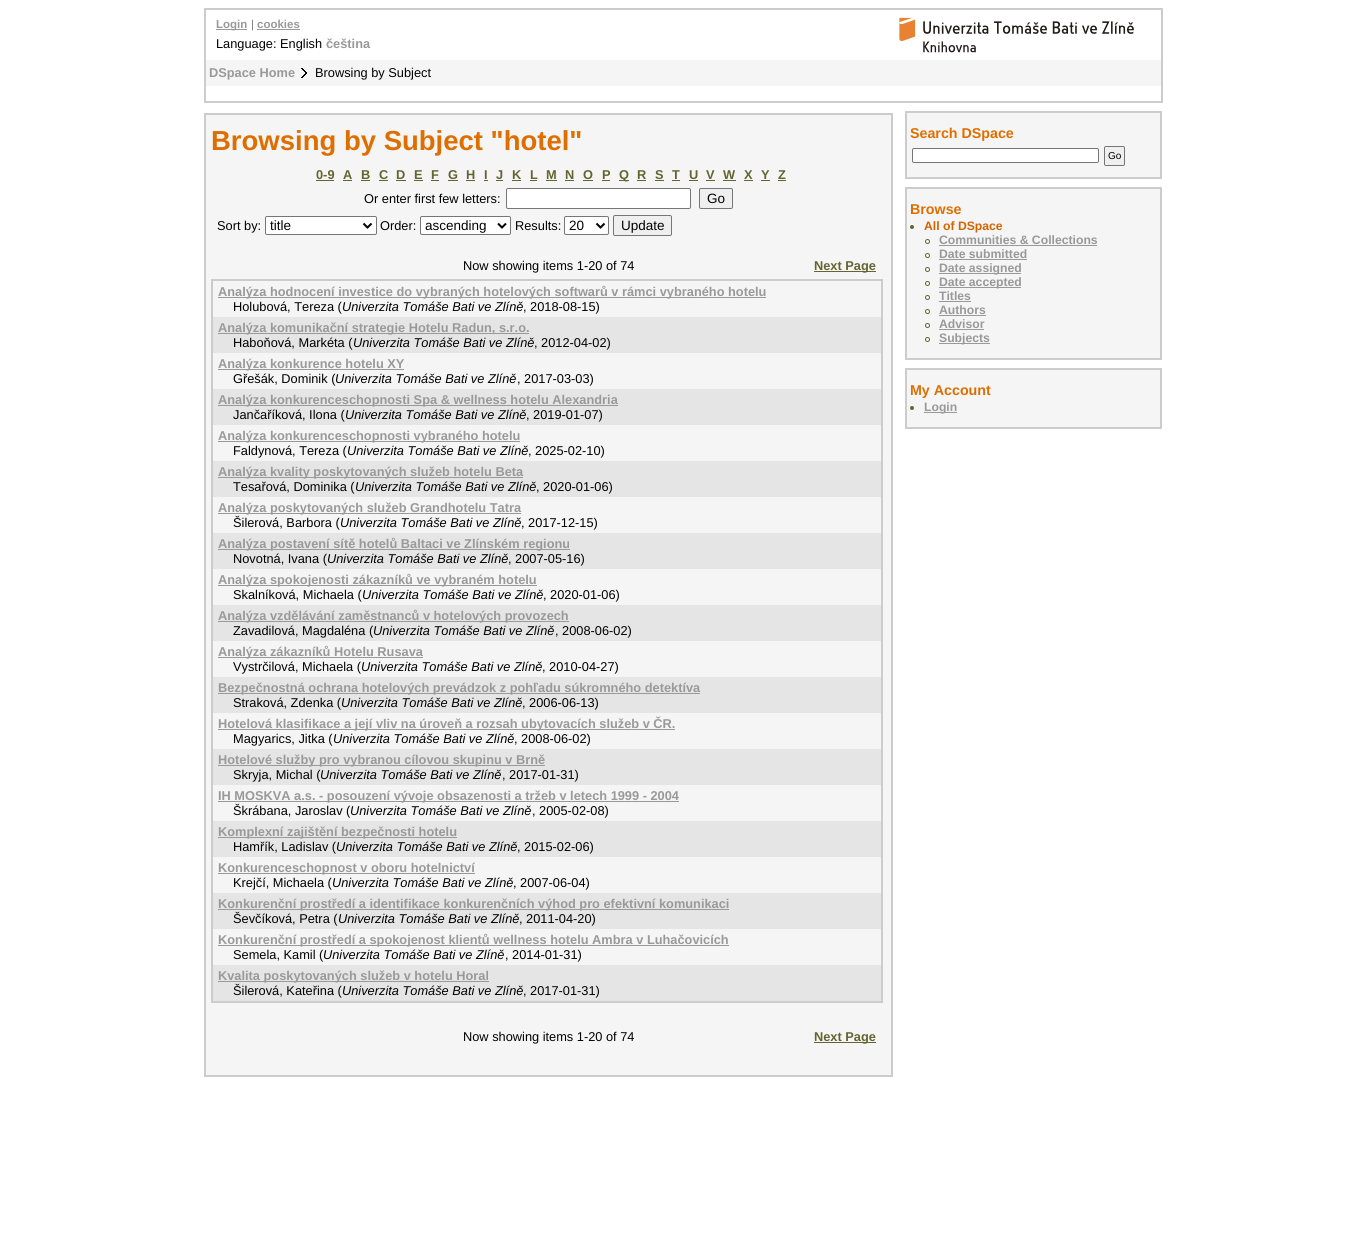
#include <cairo.h>
#include <math.h>
#include <stddef.h>


static void rgb(cairo_t *cr, int r, int g, int b)
{
	cairo_set_source_rgb(cr, r / 255.0, g / 255.0, b / 255.0);
}

static void face(cairo_t *cr, const char *family, double size, int italic, int bold)
{
	cairo_select_font_face(cr, family, italic ? CAIRO_FONT_SLANT_ITALIC : CAIRO_FONT_SLANT_NORMAL,
		bold ? CAIRO_FONT_WEIGHT_BOLD : CAIRO_FONT_WEIGHT_NORMAL);
	cairo_set_font_size(cr, size);
}

static void label(cairo_t *cr, double x, double y, const char *s)
{
	cairo_move_to(cr, x, y);
	cairo_show_text(cr, s);
}

static void rect(cairo_t *cr, double x, double y, double w, double h)
{
	cairo_rectangle(cr, x, y, w, h);
	cairo_fill(cr);
}

static void rrect(cairo_t *cr, double x, double y, double w, double h, double r)
{
	cairo_new_sub_path(cr);
	cairo_arc(cr, x + w - r, y + h - r, r, 0, M_PI / 2);
	cairo_arc(cr, x + r, y + h - r, r, M_PI / 2, M_PI);
	cairo_arc(cr, x + r, y + r, r, M_PI, 1.5 * M_PI);
	cairo_arc(cr, x + w - r, y + r, r, 1.5 * M_PI, 2 * M_PI);
	cairo_close_path(cr);
}

static void image(cairo_t *cr, const char *path, double x, double y, double w, double h)
{
	cairo_surface_t *image = cairo_image_surface_create_from_png(path);
	cairo_save(cr);
	cairo_set_source_surface(cr, image, x, y);
	cairo_rectangle(cr, x, y, w, h);
	cairo_fill(cr);
	cairo_restore(cr);
	cairo_surface_destroy(image);
}

static void draw(cairo_t *cr) {
	rgb(cr, 255, 255, 255);
	cairo_paint(cr);
	cairo_rectangle(cr, 205, 9, 957, 93);
	rgb(cr, 204, 204, 204);
	cairo_stroke(cr);
	rgb(cr, 153, 153, 153);
	rect(cr, 216, 29, 31, 1);
	face(cr, "Liberation Sans", 11.5, 0, 1);
	label(cr, 216, 28, "Login");
	face(cr, "Liberation Sans", 11.5, 0, 0);
	rgb(cr, 128, 128, 128);
	label(cr, 251, 28, "|");
	face(cr, "Liberation Sans", 11.5, 0, 1);
	rgb(cr, 153, 153, 153);
	label(cr, 257, 28, "cookies");
	rect(cr, 257, 29, 43, 1);
	image(cr, "image0.png", 899, 17, 235, 36);
	face(cr, "Liberation Sans", 12.8, 0, 0);
	rgb(cr, 0, 0, 0);
	label(cr, 216, 48, "Language: English");
	face(cr, "Liberation Sans", 12.8, 0, 1);
	rgb(cr, 153, 153, 153);
	label(cr, 326, 48, "čeština");
	rgb(cr, 245, 245, 245);
	rect(cr, 206, 60, 955, 26);
	rgb(cr, 153, 153, 153);
	label(cr, 209, 77, "DSpace Home");
	image(cr, "image1.png", 301, 68, 6, 10);
	face(cr, "Liberation Sans", 12.8, 0, 0);
	rgb(cr, 0, 0, 0);
	label(cr, 315, 77, "Browsing by Subject");
	rgb(cr, 245, 245, 245);
	cairo_rectangle(cr, 205, 114, 687, 962);
	cairo_fill_preserve(cr);
	rgb(cr, 204, 204, 204);
	cairo_stroke(cr);
	face(cr, "Liberation Sans", 27.5, 0, 1);
	rgb(cr, 223, 110, 0);
	label(cr, 211, 150, "Browsing by Subject \"hotel\"");
	face(cr, "Liberation Sans", 12.8, 0, 1);
	rgb(cr, 100, 100, 50);
	label(cr, 316, 179, "0-9");
	rect(cr, 316, 180, 18, 1);
	label(cr, 343, 179, "A");
	rect(cr, 343, 180, 9, 1);
	label(cr, 361, 179, "B");
	rect(cr, 361, 180, 9, 1);
	label(cr, 379, 179, "C");
	rect(cr, 379, 180, 9, 1);
	label(cr, 396, 179, "D");
	rect(cr, 396, 180, 10, 1);
	label(cr, 414, 179, "E");
	rect(cr, 414, 180, 9, 1);
	label(cr, 431, 179, "F");
	rect(cr, 431, 180, 8, 1);
	label(cr, 448, 179, "G");
	rect(cr, 448, 180, 10, 1);
	label(cr, 466, 179, "H");
	rect(cr, 466, 180, 9, 1);
	label(cr, 484, 179, "I");
	rect(cr, 484, 180, 4, 1);
	label(cr, 496, 179, "J");
	rect(cr, 496, 180, 7, 1);
	label(cr, 512, 179, "K");
	rect(cr, 512, 180, 9, 1);
	label(cr, 530, 179, "L");
	rect(cr, 530, 180, 7, 1);
	label(cr, 546, 179, "M");
	rect(cr, 546, 180, 11, 1);
	label(cr, 565, 179, "N");
	rect(cr, 565, 180, 9, 1);
	label(cr, 583, 179, "O");
	rect(cr, 583, 180, 10, 1);
	label(cr, 602, 179, "P");
	rect(cr, 602, 180, 8, 1);
	rect(cr, 619, 180, 10, 1);
	label(cr, 619, 179, "Q");
	label(cr, 637, 179, "R");
	rect(cr, 637, 180, 9, 1);
	label(cr, 655, 179, "S");
	rect(cr, 655, 180, 9, 1);
	label(cr, 672, 179, "T");
	rect(cr, 672, 180, 8, 1);
	label(cr, 689, 179, "U");
	rect(cr, 689, 180, 9, 1);
	label(cr, 706, 179, "V");
	rect(cr, 706, 180, 9, 1);
	label(cr, 723, 179, "W");
	rect(cr, 723, 180, 13, 1);
	label(cr, 744, 179, "X");
	rect(cr, 744, 180, 9, 1);
	label(cr, 761, 179, "Y");
	rect(cr, 761, 180, 9, 1);
	label(cr, 778, 179, "Z");
	rect(cr, 778, 180, 8, 1);
	face(cr, "Liberation Sans", 12.8, 0, 0);
	rgb(cr, 0, 0, 0);
	label(cr, 364, 203, "Or enter first few letters:");
	rgb(cr, 255, 255, 255);
	rrect(cr, 506.5, 188.5, 184, 20, 1.5);
	cairo_fill_preserve(cr);
	rgb(cr, 118, 118, 118);
	cairo_set_line_width(cr, 1);
	cairo_stroke(cr);
	rgb(cr, 239, 239, 239);
	rrect(cr, 699.5, 188.5, 33, 20, 1.5);
	cairo_fill_preserve(cr);
	rgb(cr, 118, 118, 118);
	cairo_stroke(cr);
	face(cr, "Liberation Sans", 13.5, 0, 0);
	rgb(cr, 0, 0, 0);
	label(cr, 707, 203, "Go");
	face(cr, "Liberation Sans", 12.8, 0, 0);
	label(cr, 217, 230, "Sort by:");
	rgb(cr, 255, 255, 255);
	rrect(cr, 265.5, 216.5, 111, 18, 1.5);
	cairo_fill_preserve(cr);
	rgb(cr, 118, 118, 118);
	cairo_stroke(cr);
	cairo_new_path(cr);
	cairo_move_to(cr, 363.5, 223.5);
	cairo_line_to(cr, 367.5, 227.5);
	cairo_line_to(cr, 371.5, 223.5);
	rgb(cr, 0, 0, 0);
	cairo_set_line_width(cr, 2);
	cairo_stroke(cr);
	face(cr, "Liberation Sans", 13.5, 0, 0);
	label(cr, 270, 230, "title");
	face(cr, "Liberation Sans", 12.8, 0, 0);
	label(cr, 380, 230, "Order:");
	rgb(cr, 255, 255, 255);
	rrect(cr, 420.5, 216.5, 90, 18, 1.5);
	cairo_fill_preserve(cr);
	rgb(cr, 118, 118, 118);
	cairo_set_line_width(cr, 1);
	cairo_stroke(cr);
	cairo_new_path(cr);
	cairo_move_to(cr, 498, 223.5);
	cairo_line_to(cr, 502, 227.5);
	cairo_line_to(cr, 506, 223.5);
	rgb(cr, 0, 0, 0);
	cairo_set_line_width(cr, 2);
	cairo_stroke(cr);
	face(cr, "Liberation Sans", 13.5, 0, 0);
	label(cr, 425, 230, "ascending");
	face(cr, "Liberation Sans", 12.8, 0, 0);
	label(cr, 515, 230, "Results:");
	rgb(cr, 255, 255, 255);
	rrect(cr, 564.5, 216.5, 44, 18, 1.5);
	cairo_fill_preserve(cr);
	rgb(cr, 118, 118, 118);
	cairo_set_line_width(cr, 1);
	cairo_stroke(cr);
	cairo_new_path(cr);
	cairo_move_to(cr, 596.5, 223.5);
	cairo_line_to(cr, 600.5, 227.5);
	cairo_line_to(cr, 604.5, 223.5);
	rgb(cr, 0, 0, 0);
	cairo_set_line_width(cr, 2);
	cairo_stroke(cr);
	face(cr, "Liberation Sans", 13.5, 0, 0);
	label(cr, 569, 230, "20");
	rgb(cr, 239, 239, 239);
	rrect(cr, 613.5, 215.5, 58, 20, 1.5);
	cairo_fill_preserve(cr);
	rgb(cr, 118, 118, 118);
	cairo_set_line_width(cr, 1);
	cairo_stroke(cr);
	rgb(cr, 0, 0, 0);
	label(cr, 621, 230, "Update");
	face(cr, "Liberation Sans", 12.8, 0, 0);
	label(cr, 463, 270, "Now showing items 1-20 of 74");
	rgb(cr, 100, 100, 50);
	rect(cr, 814, 271, 62, 1);
	face(cr, "Liberation Sans", 12.8, 0, 1);
	label(cr, 814, 270, "Next Page");
	cairo_rectangle(cr, 212, 280, 670, 722);
	rgb(cr, 204, 204, 204);
	cairo_set_line_width(cr, 2);
	cairo_stroke(cr);
	rgb(cr, 153, 153, 153);
	rect(cr, 218, 297, 548, 1);
	label(cr, 218, 296, "Analýza hodnocení investice do vybraných hotelových softwarů v rámci vybraného hotelu");
	face(cr, "Liberation Sans", 12.8, 0, 0);
	rgb(cr, 0, 0, 0);
	label(cr, 233, 311, "Holubová, Tereza (");
	face(cr, "Liberation Sans", 12.8, 1, 0);
	label(cr, 342, 311, "Univerzita Tomáše Bati ve Zlíně");
	face(cr, "Liberation Sans", 12.8, 0, 0);
	label(cr, 523, 311, ", 2018-08-15)");
	rgb(cr, 229, 229, 229);
	rect(cr, 213, 317, 668, 36);
	rgb(cr, 153, 153, 153);
	rect(cr, 218, 333, 311, 1);
	face(cr, "Liberation Sans", 12.8, 0, 1);
	label(cr, 218, 332, "Analýza komunikační strategie Hotelu Radun, s.r.o.");
	face(cr, "Liberation Sans", 12.8, 0, 0);
	rgb(cr, 0, 0, 0);
	label(cr, 233, 347, "Haboňová, Markéta (");
	face(cr, "Liberation Sans", 12.8, 1, 0);
	label(cr, 353, 347, "Univerzita Tomáše Bati ve Zlíně");
	face(cr, "Liberation Sans", 12.8, 0, 0);
	label(cr, 534, 347, ", 2012-04-02)");
	rgb(cr, 153, 153, 153);
	rect(cr, 218, 369, 186, 1);
	face(cr, "Liberation Sans", 12.8, 0, 1);
	label(cr, 218, 368, "Analýza konkurence hotelu XY");
	face(cr, "Liberation Sans", 12.8, 0, 0);
	rgb(cr, 0, 0, 0);
	label(cr, 233, 383, "Gřešák, Dominik (");
	face(cr, "Liberation Sans", 12.8, 1, 0);
	label(cr, 335, 383, "Univerzita Tomáše Bati ve Zlíně");
	face(cr, "Liberation Sans", 12.8, 0, 0);
	label(cr, 517, 383, ", 2017-03-03)");
	rgb(cr, 229, 229, 229);
	rect(cr, 213, 389, 668, 36);
	rgb(cr, 153, 153, 153);
	rect(cr, 218, 405, 400, 1);
	face(cr, "Liberation Sans", 12.8, 0, 1);
	label(cr, 218, 404, "Analýza konkurenceschopnosti Spa & wellness hotelu Alexandria");
	face(cr, "Liberation Sans", 12.8, 0, 0);
	rgb(cr, 0, 0, 0);
	label(cr, 233, 419, "Jančaříková, Ilona (");
	face(cr, "Liberation Sans", 12.8, 1, 0);
	label(cr, 345, 419, "Univerzita Tomáše Bati ve Zlíně");
	face(cr, "Liberation Sans", 12.8, 0, 0);
	label(cr, 526, 419, ", 2019-01-07)");
	rgb(cr, 153, 153, 153);
	rect(cr, 218, 441, 302, 1);
	face(cr, "Liberation Sans", 12.8, 0, 1);
	label(cr, 218, 440, "Analýza konkurenceschopnosti vybraného hotelu");
	face(cr, "Liberation Sans", 12.8, 0, 0);
	rgb(cr, 0, 0, 0);
	label(cr, 233, 455, "Faldynová, Tereza (");
	face(cr, "Liberation Sans", 12.8, 1, 0);
	label(cr, 347, 455, "Univerzita Tomáše Bati ve Zlíně");
	face(cr, "Liberation Sans", 12.8, 0, 0);
	label(cr, 528, 455, ", 2025-02-10)");
	rgb(cr, 229, 229, 229);
	rect(cr, 213, 461, 668, 36);
	rgb(cr, 153, 153, 153);
	rect(cr, 218, 477, 305, 1);
	face(cr, "Liberation Sans", 12.8, 0, 1);
	label(cr, 218, 476, "Analýza kvality poskytovaných služeb hotelu Beta");
	face(cr, "Liberation Sans", 12.8, 0, 0);
	rgb(cr, 0, 0, 0);
	label(cr, 233, 491, "Tesařová, Dominika (");
	face(cr, "Liberation Sans", 12.8, 1, 0);
	label(cr, 355, 491, "Univerzita Tomáše Bati ve Zlíně");
	face(cr, "Liberation Sans", 12.8, 0, 0);
	label(cr, 536, 491, ", 2020-01-06)");
	rgb(cr, 153, 153, 153);
	rect(cr, 218, 513, 303, 1);
	face(cr, "Liberation Sans", 12.8, 0, 1);
	label(cr, 218, 512, "Analýza poskytovaných služeb Grandhotelu Tatra");
	face(cr, "Liberation Sans", 12.8, 0, 0);
	rgb(cr, 0, 0, 0);
	label(cr, 233, 527, "Šilerová, Barbora (");
	face(cr, "Liberation Sans", 12.8, 1, 0);
	label(cr, 340, 527, "Univerzita Tomáše Bati ve Zlíně");
	face(cr, "Liberation Sans", 12.8, 0, 0);
	label(cr, 521, 527, ", 2017-12-15)");
	rgb(cr, 229, 229, 229);
	rect(cr, 213, 533, 668, 36);
	rgb(cr, 153, 153, 153);
	rect(cr, 218, 549, 352, 1);
	face(cr, "Liberation Sans", 12.8, 0, 1);
	label(cr, 218, 548, "Analýza postavení sítě hotelů Baltaci ve Zlínském regionu");
	face(cr, "Liberation Sans", 12.8, 0, 0);
	rgb(cr, 0, 0, 0);
	label(cr, 233, 563, "Novotná, Ivana (");
	face(cr, "Liberation Sans", 12.8, 1, 0);
	label(cr, 327, 563, "Univerzita Tomáše Bati ve Zlíně");
	face(cr, "Liberation Sans", 12.8, 0, 0);
	label(cr, 508, 563, ", 2007-05-16)");
	rgb(cr, 153, 153, 153);
	rect(cr, 218, 585, 319, 1);
	face(cr, "Liberation Sans", 12.8, 0, 1);
	label(cr, 218, 584, "Analýza spokojenosti zákazníků ve vybraném hotelu");
	face(cr, "Liberation Sans", 12.8, 0, 0);
	rgb(cr, 0, 0, 0);
	label(cr, 233, 599, "Skalníková, Michaela (");
	face(cr, "Liberation Sans", 12.8, 1, 0);
	label(cr, 362, 599, "Univerzita Tomáše Bati ve Zlíně");
	face(cr, "Liberation Sans", 12.8, 0, 0);
	label(cr, 543, 599, ", 2020-01-06)");
	rgb(cr, 229, 229, 229);
	rect(cr, 213, 605, 668, 36);
	rgb(cr, 153, 153, 153);
	rect(cr, 218, 621, 351, 1);
	face(cr, "Liberation Sans", 12.8, 0, 1);
	label(cr, 218, 620, "Analýza vzdělávání zaměstnanců v hotelových provozech");
	face(cr, "Liberation Sans", 12.8, 0, 0);
	rgb(cr, 0, 0, 0);
	label(cr, 233, 635, "Zavadilová, Magdaléna (");
	face(cr, "Liberation Sans", 12.8, 1, 0);
	label(cr, 373, 635, "Univerzita Tomáše Bati ve Zlíně");
	face(cr, "Liberation Sans", 12.8, 0, 0);
	label(cr, 555, 635, ", 2008-06-02)");
	rgb(cr, 153, 153, 153);
	rect(cr, 218, 657, 205, 1);
	face(cr, "Liberation Sans", 12.8, 0, 1);
	label(cr, 218, 656, "Analýza zákazníků Hotelu Rusava");
	face(cr, "Liberation Sans", 12.8, 0, 0);
	rgb(cr, 0, 0, 0);
	label(cr, 233, 671, "Vystrčilová, Michaela (");
	face(cr, "Liberation Sans", 12.8, 1, 0);
	label(cr, 361, 671, "Univerzita Tomáše Bati ve Zlíně");
	face(cr, "Liberation Sans", 12.8, 0, 0);
	label(cr, 542, 671, ", 2010-04-27)");
	rgb(cr, 229, 229, 229);
	rect(cr, 213, 677, 668, 36);
	rgb(cr, 153, 153, 153);
	rect(cr, 218, 693, 482, 1);
	face(cr, "Liberation Sans", 12.8, 0, 1);
	label(cr, 218, 692, "Bezpečnostná ochrana hotelových prevádzok z pohľadu súkromného detektíva");
	face(cr, "Liberation Sans", 12.8, 0, 0);
	rgb(cr, 0, 0, 0);
	label(cr, 233, 707, "Straková, Zdenka (");
	face(cr, "Liberation Sans", 12.8, 1, 0);
	label(cr, 341, 707, "Univerzita Tomáše Bati ve Zlíně");
	face(cr, "Liberation Sans", 12.8, 0, 0);
	label(cr, 522, 707, ", 2006-06-13)");
	rgb(cr, 153, 153, 153);
	rect(cr, 218, 729, 457, 1);
	face(cr, "Liberation Sans", 12.8, 0, 1);
	label(cr, 218, 728, "Hotelová klasifikace a její vliv na úroveň a rozsah ubytovacích služeb v ČR.");
	face(cr, "Liberation Sans", 12.8, 0, 0);
	rgb(cr, 0, 0, 0);
	label(cr, 233, 743, "Magyarics, Jitka (");
	face(cr, "Liberation Sans", 12.8, 1, 0);
	label(cr, 333, 743, "Univerzita Tomáše Bati ve Zlíně");
	face(cr, "Liberation Sans", 12.8, 0, 0);
	label(cr, 514, 743, ", 2008-06-02)");
	rgb(cr, 229, 229, 229);
	rect(cr, 213, 749, 668, 36);
	rgb(cr, 153, 153, 153);
	rect(cr, 218, 765, 327, 1);
	face(cr, "Liberation Sans", 12.8, 0, 1);
	label(cr, 218, 764, "Hotelové služby pro vybranou cílovou skupinu v Brně");
	face(cr, "Liberation Sans", 12.8, 0, 0);
	rgb(cr, 0, 0, 0);
	label(cr, 233, 779, "Skryja, Michal (");
	face(cr, "Liberation Sans", 12.8, 1, 0);
	label(cr, 320, 779, "Univerzita Tomáše Bati ve Zlíně");
	face(cr, "Liberation Sans", 12.8, 0, 0);
	label(cr, 502, 779, ", 2017-01-31)");
	rgb(cr, 153, 153, 153);
	rect(cr, 218, 801, 461, 1);
	face(cr, "Liberation Sans", 12.8, 0, 1);
	label(cr, 218, 800, "IH MOSKVA a.s. - posouzení vývoje obsazenosti a tržeb v letech 1999 - 2004");
	face(cr, "Liberation Sans", 12.8, 0, 0);
	rgb(cr, 0, 0, 0);
	label(cr, 233, 815, "Škrábana, Jaroslav (");
	face(cr, "Liberation Sans", 12.8, 1, 0);
	label(cr, 350, 815, "Univerzita Tomáše Bati ve Zlíně");
	face(cr, "Liberation Sans", 12.8, 0, 0);
	label(cr, 532, 815, ", 2005-02-08)");
	rgb(cr, 229, 229, 229);
	rect(cr, 213, 821, 668, 36);
	rgb(cr, 153, 153, 153);
	rect(cr, 218, 837, 239, 1);
	face(cr, "Liberation Sans", 12.8, 0, 1);
	label(cr, 218, 836, "Komplexní zajištění bezpečnosti hotelu");
	face(cr, "Liberation Sans", 12.8, 0, 0);
	rgb(cr, 0, 0, 0);
	label(cr, 233, 851, "Hamřík, Ladislav (");
	face(cr, "Liberation Sans", 12.8, 1, 0);
	label(cr, 336, 851, "Univerzita Tomáše Bati ve Zlíně");
	face(cr, "Liberation Sans", 12.8, 0, 0);
	label(cr, 517, 851, ", 2015-02-06)");
	rgb(cr, 153, 153, 153);
	rect(cr, 218, 873, 257, 1);
	face(cr, "Liberation Sans", 12.8, 0, 1);
	label(cr, 218, 872, "Konkurenceschopnost v oboru hotelnictví");
	face(cr, "Liberation Sans", 12.8, 0, 0);
	rgb(cr, 0, 0, 0);
	label(cr, 233, 887, "Krejčí, Michaela (");
	face(cr, "Liberation Sans", 12.8, 1, 0);
	label(cr, 332, 887, "Univerzita Tomáše Bati ve Zlíně");
	face(cr, "Liberation Sans", 12.8, 0, 0);
	label(cr, 513, 887, ", 2007-06-04)");
	rgb(cr, 229, 229, 229);
	rect(cr, 213, 893, 668, 36);
	rgb(cr, 153, 153, 153);
	rect(cr, 218, 909, 511, 1);
	face(cr, "Liberation Sans", 12.8, 0, 1);
	label(cr, 218, 908, "Konkurenční prostředí a identifikace konkurenčních výhod pro efektivní komunikaci");
	face(cr, "Liberation Sans", 12.8, 0, 0);
	rgb(cr, 0, 0, 0);
	label(cr, 233, 923, "Ševčíková, Petra (");
	face(cr, "Liberation Sans", 12.8, 1, 0);
	label(cr, 338, 923, "Univerzita Tomáše Bati ve Zlíně");
	face(cr, "Liberation Sans", 12.8, 0, 0);
	label(cr, 519, 923, ", 2011-04-20)");
	rgb(cr, 153, 153, 153);
	rect(cr, 218, 945, 511, 1);
	face(cr, "Liberation Sans", 12.8, 0, 1);
	label(cr, 218, 944, "Konkurenční prostředí a spokojenost klientů wellness hotelu Ambra v Luhačovicích");
	face(cr, "Liberation Sans", 12.8, 0, 0);
	rgb(cr, 0, 0, 0);
	label(cr, 233, 959, "Semela, Kamil (");
	face(cr, "Liberation Sans", 12.8, 1, 0);
	label(cr, 323, 959, "Univerzita Tomáše Bati ve Zlíně");
	face(cr, "Liberation Sans", 12.8, 0, 0);
	label(cr, 505, 959, ", 2014-01-31)");
	rgb(cr, 229, 229, 229);
	rect(cr, 213, 965, 668, 36);
	rgb(cr, 153, 153, 153);
	rect(cr, 218, 981, 271, 1);
	face(cr, "Liberation Sans", 12.8, 0, 1);
	label(cr, 218, 980, "Kvalita poskytovaných služeb v hotelu Horal");
	face(cr, "Liberation Sans", 12.8, 0, 0);
	rgb(cr, 0, 0, 0);
	label(cr, 233, 995, "Šilerová, Kateřina (");
	face(cr, "Liberation Sans", 12.8, 1, 0);
	label(cr, 342, 995, "Univerzita Tomáše Bati ve Zlíně");
	face(cr, "Liberation Sans", 12.8, 0, 0);
	label(cr, 523, 995, ", 2017-01-31)");
	label(cr, 463, 1041, "Now showing items 1-20 of 74");
	rgb(cr, 100, 100, 50);
	rect(cr, 814, 1042, 62, 1);
	face(cr, "Liberation Sans", 12.8, 0, 1);
	label(cr, 814, 1041, "Next Page");
	rgb(cr, 245, 245, 245);
	cairo_rectangle(cr, 906, 112, 255, 66);
	cairo_fill_preserve(cr);
	rgb(cr, 204, 204, 204);
	cairo_stroke(cr);
	face(cr, "Liberation Sans", 14.25, 0, 1);
	rgb(cr, 223, 110, 0);
	label(cr, 910, 138, "Search DSpace");
	rgb(cr, 255, 255, 255);
	rrect(cr, 912.5, 148.5, 186, 14, 1.5);
	cairo_fill_preserve(cr);
	rgb(cr, 118, 118, 118);
	cairo_set_line_width(cr, 1);
	cairo_stroke(cr);
	rgb(cr, 239, 239, 239);
	rrect(cr, 1104.5, 146.5, 20, 19, 1.5);
	cairo_fill_preserve(cr);
	rgb(cr, 118, 118, 118);
	cairo_stroke(cr);
	face(cr, "Liberation Sans", 10, 0, 0);
	rgb(cr, 0, 0, 0);
	label(cr, 1108, 159, "Go");
	rgb(cr, 245, 245, 245);
	cairo_rectangle(cr, 906, 188, 255, 171);
	cairo_fill_preserve(cr);
	rgb(cr, 204, 204, 204);
	cairo_set_line_width(cr, 2);
	cairo_stroke(cr);
	face(cr, "Liberation Sans", 14.25, 0, 1);
	rgb(cr, 223, 110, 0);
	label(cr, 910, 214, "Browse");
	rgb(cr, 100, 100, 50);
	cairo_new_path(cr);
	cairo_arc(cr, 912, 227, 2, 0, 2 * M_PI);
	cairo_fill(cr);
	face(cr, "Liberation Sans", 12.2, 0, 1);
	rgb(cr, 210, 100, 0);
	label(cr, 924, 230, "All of DSpace");
	cairo_new_path(cr);
	cairo_arc(cr, 927.5, 241.5, 2, 0, 2 * M_PI);
	rgb(cr, 100, 100, 50);
	cairo_set_line_width(cr, 1);
	cairo_stroke(cr);
	rgb(cr, 153, 153, 153);
	label(cr, 939, 244, "Communities & Collections");
	rect(cr, 939, 245, 158, 1);
	cairo_new_path(cr);
	cairo_arc(cr, 927.5, 255.5, 2, 0, 2 * M_PI);
	rgb(cr, 100, 100, 50);
	cairo_stroke(cr);
	rgb(cr, 153, 153, 153);
	label(cr, 939, 258, "Date submitted");
	rect(cr, 939, 259, 88, 1);
	cairo_new_path(cr);
	cairo_arc(cr, 927.5, 269.5, 2, 0, 2 * M_PI);
	rgb(cr, 100, 100, 50);
	cairo_stroke(cr);
	rgb(cr, 153, 153, 153);
	rect(cr, 939, 273, 82, 1);
	label(cr, 939, 272, "Date assigned");
	cairo_new_path(cr);
	cairo_arc(cr, 927.5, 283.5, 2, 0, 2 * M_PI);
	rgb(cr, 100, 100, 50);
	cairo_stroke(cr);
	rgb(cr, 153, 153, 153);
	rect(cr, 939, 287, 82, 1);
	label(cr, 939, 286, "Date accepted");
	cairo_new_path(cr);
	cairo_arc(cr, 927.5, 297.5, 2, 0, 2 * M_PI);
	rgb(cr, 100, 100, 50);
	cairo_stroke(cr);
	rgb(cr, 153, 153, 153);
	label(cr, 939, 300, "Titles");
	rect(cr, 939, 301, 32, 1);
	cairo_new_path(cr);
	cairo_arc(cr, 927.5, 311.5, 2, 0, 2 * M_PI);
	rgb(cr, 100, 100, 50);
	cairo_stroke(cr);
	rgb(cr, 153, 153, 153);
	label(cr, 939, 314, "Authors");
	rect(cr, 939, 315, 47, 1);
	cairo_new_path(cr);
	cairo_arc(cr, 927.5, 325.5, 2, 0, 2 * M_PI);
	rgb(cr, 100, 100, 50);
	cairo_stroke(cr);
	rgb(cr, 153, 153, 153);
	label(cr, 939, 328, "Advisor");
	rect(cr, 939, 329, 45, 1);
	cairo_new_path(cr);
	cairo_arc(cr, 927.5, 339.5, 2, 0, 2 * M_PI);
	rgb(cr, 100, 100, 50);
	cairo_stroke(cr);
	rgb(cr, 153, 153, 153);
	rect(cr, 939, 343, 51, 1);
	label(cr, 939, 342, "Subjects");
	rgb(cr, 245, 245, 245);
	cairo_rectangle(cr, 906, 369, 255, 59);
	cairo_fill_preserve(cr);
	rgb(cr, 204, 204, 204);
	cairo_set_line_width(cr, 2);
	cairo_stroke(cr);
	face(cr, "Liberation Sans", 14.25, 0, 1);
	rgb(cr, 223, 110, 0);
	label(cr, 910, 395, "My Account");
	rgb(cr, 100, 100, 50);
	cairo_new_path(cr);
	cairo_arc(cr, 912, 408, 2, 0, 2 * M_PI);
	cairo_fill(cr);
	rgb(cr, 153, 153, 153);
	rect(cr, 924, 412, 33, 1);
	face(cr, "Liberation Sans", 12.2, 0, 1);
	label(cr, 924, 411, "Login");
}

int main(void) {
	cairo_surface_t *surface = cairo_image_surface_create(CAIRO_FORMAT_RGB24, 1358, 1241);
	cairo_t *cr = cairo_create(surface);
	cairo_font_options_t *options = cairo_font_options_create();
	cairo_font_options_set_hint_metrics(options, CAIRO_HINT_METRICS_OFF);
	cairo_font_options_set_hint_style(options, CAIRO_HINT_STYLE_NONE);
	cairo_set_font_options(cr, options);
	cairo_set_miter_limit(cr, 4);
	draw(cr);
	cairo_surface_write_to_png(surface, "render.png");
	cairo_font_options_destroy(options);
	cairo_destroy(cr);
	cairo_surface_destroy(surface);
	return 0;
}
